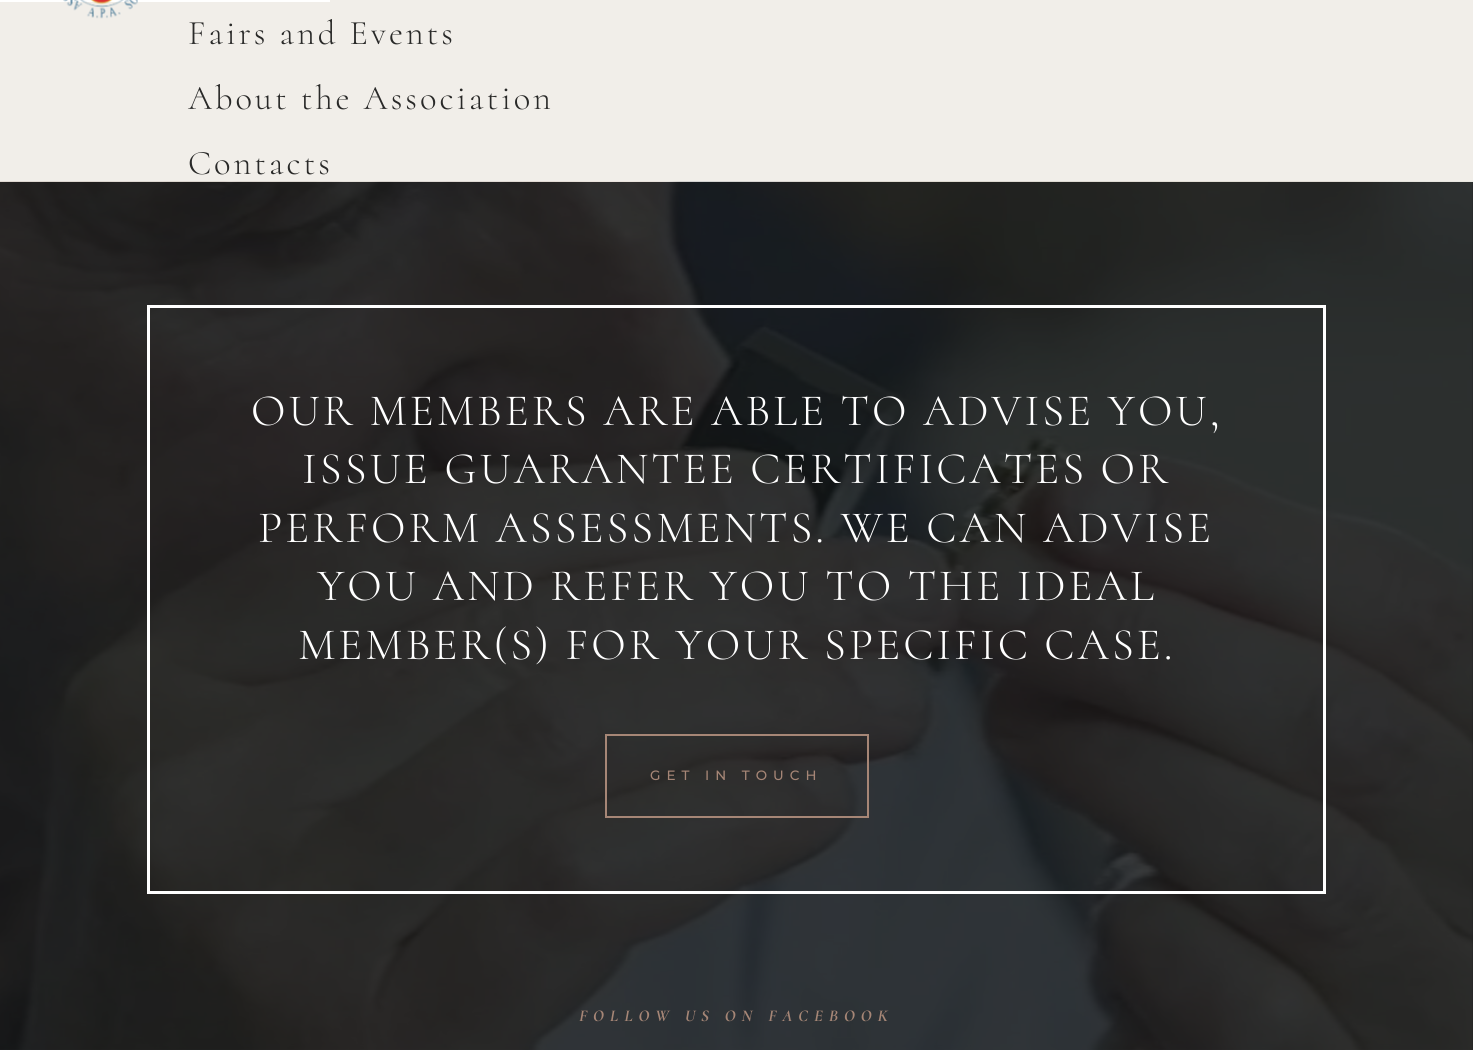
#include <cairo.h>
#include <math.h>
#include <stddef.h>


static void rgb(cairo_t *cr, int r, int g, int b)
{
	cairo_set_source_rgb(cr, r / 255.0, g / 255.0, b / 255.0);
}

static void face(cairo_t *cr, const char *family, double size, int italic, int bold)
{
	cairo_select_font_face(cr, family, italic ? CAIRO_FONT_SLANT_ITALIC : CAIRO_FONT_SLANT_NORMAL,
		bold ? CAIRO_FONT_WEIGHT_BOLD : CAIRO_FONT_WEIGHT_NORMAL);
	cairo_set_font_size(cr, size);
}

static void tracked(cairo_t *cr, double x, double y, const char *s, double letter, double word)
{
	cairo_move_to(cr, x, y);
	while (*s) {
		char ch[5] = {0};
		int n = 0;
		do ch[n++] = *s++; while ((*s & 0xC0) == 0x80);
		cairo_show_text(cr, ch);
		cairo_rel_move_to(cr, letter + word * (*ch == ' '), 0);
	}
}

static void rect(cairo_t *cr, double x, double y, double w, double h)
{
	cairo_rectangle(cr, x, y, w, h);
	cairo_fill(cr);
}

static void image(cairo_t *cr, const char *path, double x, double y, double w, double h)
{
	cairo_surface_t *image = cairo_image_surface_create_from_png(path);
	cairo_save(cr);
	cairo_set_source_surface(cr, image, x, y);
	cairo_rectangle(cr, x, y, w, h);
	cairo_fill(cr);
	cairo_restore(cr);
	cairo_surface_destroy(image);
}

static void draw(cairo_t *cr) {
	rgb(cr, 241, 238, 233);
	cairo_paint(cr);
	rgb(cr, 255, 255, 255);
	rect(cr, 0, 0, 330, 2);
	image(cr, "image0.png", 63, 0, 75, 19);
	face(cr, "Cormorant Light", 34.5, 0, 0);
	rgb(cr, 41, 41, 40);
	tracked(cr, 188, 44, "Fairs and Events", 3, 0);
	tracked(cr, 188, 109, "About the Association", 3, 0);
	tracked(cr, 188, 174, "Contacts", 3, 0);
	rgb(cr, 20, 23, 25);
	rect(cr, 0, 182, 1473, 868);
	image(cr, "image1.png", 0, 181, 1473, 869);
	cairo_rectangle(cr, 148.5, 306.5, 1176, 586);
	rgb(cr, 255, 255, 255);
	cairo_set_line_width(cr, 3);
	cairo_stroke(cr);
	face(cr, "Cormorant Light", 45, 0, 0);
	tracked(cr, 251, 425, "OUR MEMBERS ARE ABLE TO ADVISE YOU,", 3, 0);
	tracked(cr, 302, 483, "ISSUE GUARANTEE CERTIFICATES OR", 3, 0);
	tracked(cr, 258, 542, "PERFORM ASSESSMENTS. WE CAN ADVISE", 3, 0);
	tracked(cr, 317, 600, "YOU AND REFER YOU TO THE IDEAL", 3, 0);
	tracked(cr, 298, 659, "MEMBER(S) FOR YOUR SPECIFIC CASE.", 3, 0);
	cairo_rectangle(cr, 606, 735, 262, 82);
	rgb(cr, 166, 134, 118);
	cairo_set_line_width(cr, 2);
	cairo_stroke(cr);
	face(cr, "Montserrat Medium", 13.5, 0, 0);
	tracked(cr, 650, 780, "GET IN TOUCH", 6, 0);
	face(cr, "Cormorant", 16.5, 1, 1);
	tracked(cr, 579, 1021, "FOLLOW US ON FACEBOOK", 6, 0);
}

int main(void) {
	cairo_surface_t *surface = cairo_image_surface_create(CAIRO_FORMAT_RGB24, 1473, 1050);
	cairo_t *cr = cairo_create(surface);
	cairo_font_options_t *options = cairo_font_options_create();
	cairo_font_options_set_hint_metrics(options, CAIRO_HINT_METRICS_OFF);
	cairo_font_options_set_hint_style(options, CAIRO_HINT_STYLE_NONE);
	cairo_set_font_options(cr, options);
	cairo_set_miter_limit(cr, 4);
	draw(cr);
	cairo_surface_write_to_png(surface, "render.png");
	cairo_font_options_destroy(options);
	cairo_destroy(cr);
	cairo_surface_destroy(surface);
	return 0;
}
